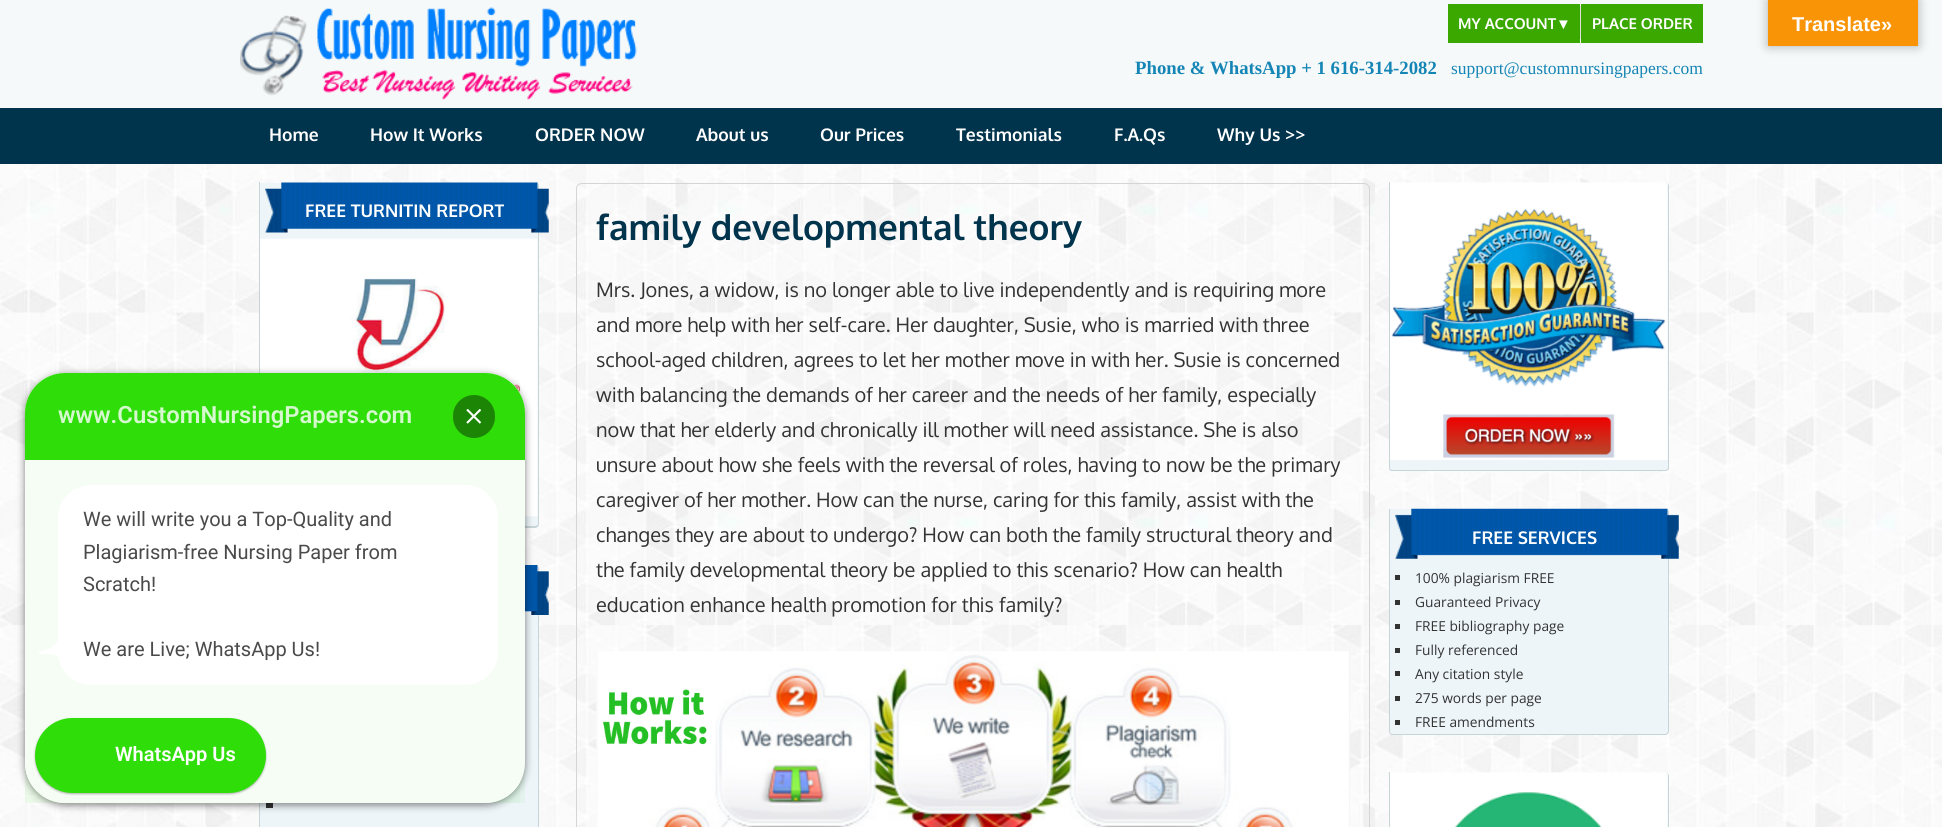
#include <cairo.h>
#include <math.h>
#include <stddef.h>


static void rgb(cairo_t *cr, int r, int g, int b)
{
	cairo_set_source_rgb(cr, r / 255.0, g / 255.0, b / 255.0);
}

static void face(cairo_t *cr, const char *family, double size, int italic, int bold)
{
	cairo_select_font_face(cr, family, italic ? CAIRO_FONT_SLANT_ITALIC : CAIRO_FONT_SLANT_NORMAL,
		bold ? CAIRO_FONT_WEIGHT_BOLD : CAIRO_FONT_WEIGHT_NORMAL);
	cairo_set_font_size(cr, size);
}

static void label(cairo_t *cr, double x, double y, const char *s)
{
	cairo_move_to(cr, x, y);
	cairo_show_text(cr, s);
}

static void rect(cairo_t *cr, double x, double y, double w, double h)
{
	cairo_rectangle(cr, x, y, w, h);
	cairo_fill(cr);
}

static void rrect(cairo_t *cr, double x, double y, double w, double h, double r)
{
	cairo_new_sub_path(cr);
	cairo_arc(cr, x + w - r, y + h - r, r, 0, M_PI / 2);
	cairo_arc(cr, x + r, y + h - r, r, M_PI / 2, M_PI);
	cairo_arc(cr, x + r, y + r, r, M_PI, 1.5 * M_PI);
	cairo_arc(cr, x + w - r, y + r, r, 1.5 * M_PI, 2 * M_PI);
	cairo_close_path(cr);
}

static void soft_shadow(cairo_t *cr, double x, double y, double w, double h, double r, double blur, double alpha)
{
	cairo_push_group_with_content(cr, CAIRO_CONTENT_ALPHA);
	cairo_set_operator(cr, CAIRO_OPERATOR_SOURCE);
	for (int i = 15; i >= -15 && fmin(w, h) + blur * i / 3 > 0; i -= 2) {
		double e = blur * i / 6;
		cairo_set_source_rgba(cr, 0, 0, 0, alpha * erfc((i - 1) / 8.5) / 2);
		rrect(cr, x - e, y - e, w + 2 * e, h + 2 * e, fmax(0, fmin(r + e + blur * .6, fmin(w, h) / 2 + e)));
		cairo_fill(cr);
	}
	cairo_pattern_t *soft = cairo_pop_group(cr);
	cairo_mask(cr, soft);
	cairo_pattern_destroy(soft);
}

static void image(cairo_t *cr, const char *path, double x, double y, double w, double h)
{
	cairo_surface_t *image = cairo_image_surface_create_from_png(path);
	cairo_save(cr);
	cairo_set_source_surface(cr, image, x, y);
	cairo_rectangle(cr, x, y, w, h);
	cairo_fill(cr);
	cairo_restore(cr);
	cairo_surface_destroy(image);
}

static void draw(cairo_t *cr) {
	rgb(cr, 255, 255, 255);
	cairo_paint(cr);
	image(cr, "image0.png", 0, 164, 1942, 663);
	rgb(cr, 237, 245, 249);
	cairo_new_path(cr);
	cairo_move_to(cr, 259, 183);
	cairo_line_to(cr, 535, 183);
	cairo_curve_to(cr, 537, 183, 539, 185, 539, 187);
	cairo_line_to(cr, 539, 524);
	cairo_curve_to(cr, 539, 526, 537, 528, 535, 528);
	cairo_line_to(cr, 263, 528);
	cairo_curve_to(cr, 261, 528, 259, 526, 259, 524);
	cairo_close_path(cr);
	cairo_fill(cr);
	rgb(cr, 200, 213, 215);
	cairo_set_fill_rule(cr, CAIRO_FILL_RULE_EVEN_ODD);
	cairo_new_path(cr);
	cairo_move_to(cr, 259, 182);
	cairo_line_to(cr, 535, 182);
	cairo_curve_to(cr, 537, 182, 539, 184, 539, 186);
	cairo_line_to(cr, 539, 524);
	cairo_curve_to(cr, 539, 526, 537, 528, 535, 528);
	cairo_line_to(cr, 262, 528);
	cairo_curve_to(cr, 260, 528, 259, 526, 259, 524);
	cairo_close_path(cr);
	cairo_move_to(cr, 260, 182);
	cairo_line_to(cr, 535, 182);
	cairo_curve_to(cr, 536, 182, 538, 184, 538, 186);
	cairo_line_to(cr, 538, 524);
	cairo_curve_to(cr, 538, 525, 536, 526, 535, 526);
	cairo_line_to(cr, 262, 526);
	cairo_curve_to(cr, 261, 526, 260, 525, 260, 524);
	cairo_close_path(cr);
	cairo_fill(cr);
	image(cr, "image4.png", 260, 238, 278, 279);
	rgb(cr, 237, 245, 249);
	cairo_new_path(cr);
	cairo_move_to(cr, 259, 565);
	cairo_line_to(cr, 535, 565);
	cairo_curve_to(cr, 537, 565, 539, 567, 539, 569);
	cairo_line_to(cr, 539, 827);
	cairo_curve_to(cr, 539, 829, 537, 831, 535, 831);
	cairo_line_to(cr, 263, 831);
	cairo_curve_to(cr, 261, 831, 259, 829, 259, 827);
	cairo_close_path(cr);
	cairo_fill(cr);
	rgb(cr, 200, 213, 215);
	cairo_new_path(cr);
	cairo_move_to(cr, 259, 565);
	cairo_line_to(cr, 535, 565);
	cairo_curve_to(cr, 537, 565, 539, 567, 539, 569);
	cairo_line_to(cr, 539, 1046);
	cairo_curve_to(cr, 539, 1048, 537, 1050, 535, 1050);
	cairo_line_to(cr, 262, 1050);
	cairo_curve_to(cr, 260, 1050, 259, 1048, 259, 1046);
	cairo_close_path(cr);
	cairo_move_to(cr, 260, 565);
	cairo_line_to(cr, 535, 565);
	cairo_curve_to(cr, 536, 565, 538, 567, 538, 569);
	cairo_line_to(cr, 538, 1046);
	cairo_curve_to(cr, 538, 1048, 536, 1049, 535, 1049);
	cairo_line_to(cr, 262, 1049);
	cairo_curve_to(cr, 261, 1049, 260, 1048, 260, 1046);
	cairo_close_path(cr);
	cairo_fill(cr);
	image(cr, "image5.png", 525, 565, 24, 50);
	rgb(cr, 51, 51, 51);
	rect(cr, 266, 803, 7, 5);
	rgb(cr, 0, 0, 0);
	soft_shadow(cr, 25, 375, 500, 430, 40, 4, 0.5);
	rgb(cr, 255, 255, 255);
	rrect(cr, 25, 373, 500, 430, 40);
	cairo_fill(cr);
	rgb(cr, 47, 221, 8);
	cairo_new_path(cr);
	cairo_move_to(cr, 65, 373);
	cairo_line_to(cr, 485, 373);
	cairo_curve_to(cr, 507, 373, 525, 391, 525, 413);
	cairo_line_to(cr, 525, 460);
	cairo_line_to(cr, 25, 460);
	cairo_line_to(cr, 25, 413);
	cairo_curve_to(cr, 25, 391, 43, 373, 65, 373);
	cairo_close_path(cr);
	cairo_fill(cr);
	cairo_set_source_rgba(cr, 0.184, 0.867, 0.031, 0.04);
	rect(cr, 25, 460, 500, 343);
	face(cr, "Roboto SemiBold", 23.75, 0, 0);
	rgb(cr, 213, 248, 206);
	label(cr, 58, 423, "www.CustomNursingPapers.com");
	rgb(cr, 28, 133, 5);
	rrect(cr, 453, 395, 42, 43, 21);
	cairo_fill(cr);
	image(cr, "image1.png", 466, 409, 15, 15);
	rgb(cr, 255, 255, 255);
	rrect(cr, 58, 485, 440, 200, 33);
	cairo_fill(cr);
	face(cr, "Roboto", 20, 0, 0);
	rgb(cr, 74, 74, 74);
	label(cr, 83, 526, "We will write you a Top-Quality and");
	label(cr, 83, 559, "Plagiarism-free Nursing Paper from");
	label(cr, 83, 591, "Scratch!");
	rgb(cr, 255, 255, 255);
	cairo_set_fill_rule(cr, CAIRO_FILL_RULE_WINDING);
	cairo_new_path(cr);
	cairo_move_to(cr, 60, 662.5);
	cairo_line_to(cr, 60, 631);
	cairo_curve_to(cr, 60, 647.5, 46.5, 650, 40, 651);
	cairo_line_to(cr, 39, 652);
	cairo_line_to(cr, 39, 653.5);
	cairo_curve_to(cr, 40, 654.5, 44, 654, 44.5, 654);
	cairo_curve_to(cr, 50.5, 654, 60, 654, 60, 662.5);
	cairo_close_path(cr);
	cairo_fill(cr);
	rgb(cr, 74, 74, 74);
	label(cr, 83, 656, "We are Live; WhatsApp Us!");
	cairo_save(cr);
	rrect(cr, 25, 373, 500, 430, 40);
	cairo_clip(cr);
	rgb(cr, 255, 255, 255);
	cairo_new_path(cr);
	cairo_move_to(cr, 25, 703);
	cairo_line_to(cr, 520, 703);
	cairo_line_to(cr, 520, 803);
	cairo_line_to(cr, 65, 803);
	cairo_curve_to(cr, 43, 803, 25, 785, 25, 763);
	cairo_close_path(cr);
	cairo_fill(cr);
	cairo_restore(cr);
	cairo_set_source_rgba(cr, 0.184, 0.867, 0.031, 0.04);
	rect(cr, 25, 703, 495, 100);
	rgb(cr, 0, 0, 0);
	soft_shadow(cr, 35, 719, 231, 75, 37.5, 1, 0.3);
	rgb(cr, 47, 221, 8);
	rrect(cr, 35, 718, 231, 75, 37.5);
	cairo_fill(cr);
	face(cr, "Roboto SemiBold", 20, 0, 0);
	rgb(cr, 255, 255, 255);
	label(cr, 115, 761, "WhatsApp Us");
	rgb(cr, 245, 249, 250);
	rect(cr, 0, 0, 1942, 108);
	image(cr, "image2.png", 240, 7, 397, 93);
	rgb(cr, 221, 221, 221);
	rect(cr, 1580, 6, 1, 33);
	rgb(cr, 59, 168, 0);
	rect(cr, 1448, 4, 132, 39);
	face(cr, "Oxygen", 15, 0, 1);
	rgb(cr, 255, 255, 255);
	label(cr, 1458, 29, "MY ACCOUNT");
	face(cr, "Liberation Sans", 15, 0, 1);
	label(cr, 1556, 29, "▼");
	rgb(cr, 59, 168, 0);
	rect(cr, 1581, 4, 122, 39);
	face(cr, "Oxygen", 15, 0, 1);
	rgb(cr, 255, 255, 255);
	label(cr, 1592, 29, "PLACE ORDER");
	face(cr, "Liberation Serif", 18.75, 0, 1);
	rgb(cr, 21, 133, 181);
	label(cr, 1135, 74, "Phone & WhatsApp + 1 616-314-2082");
	face(cr, "Liberation Serif", 17.5, 0, 0);
	label(cr, 1451, 74, "support@customnursingpapers.com");
	rgb(cr, 0, 51, 76);
	rect(cr, 0, 108, 1942, 56);
	face(cr, "Oxygen", 17.5, 0, 1);
	rgb(cr, 255, 255, 255);
	label(cr, 269, 141, "Home");
	label(cr, 370, 141, "How It Works");
	label(cr, 535, 141, "ORDER NOW");
	label(cr, 696, 141, "About us");
	label(cr, 820, 141, "Our Prices");
	label(cr, 956, 141, "Testimonials");
	label(cr, 1114, 141, "F.A.Qs");
	label(cr, 1217, 141, "Why Us >>");
	image(cr, "image3.png", 265, 182, 284, 51);
	label(cr, 305, 217, "FREE TURNITIN REPORT");
	rrect(cr, 576.5, 183.5, 793, 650, 5.5);
	rgb(cr, 213, 213, 213);
	cairo_set_line_width(cr, 1);
	cairo_stroke(cr);
	face(cr, "Oxygen", 35, 0, 1);
	rgb(cr, 0, 51, 76);
	label(cr, 596, 240, "family developmental theory");
	face(cr, "Oxygen", 20, 0, 0);
	rgb(cr, 51, 51, 51);
	label(cr, 596, 297, "Mrs. Jones, a widow, is no longer able to live independently and is requiring more");
	label(cr, 596, 332, "and more help with her self-care. Her daughter, Susie, who is married with three");
	label(cr, 596, 367, "school-aged children, agrees to let her mother move in with her. Susie is concerned");
	label(cr, 596, 402, "with balancing the demands of her career and the needs of her family, especially");
	label(cr, 596, 437, "now that her elderly and chronically ill mother will need assistance. She is also");
	label(cr, 596, 472, "unsure about how she feels with the reversal of roles, having to now be the primary");
	label(cr, 596, 507, "caregiver of her mother. How can the nurse, caring for this family, assist with the");
	label(cr, 596, 542, "changes they are about to undergo? How can both the family structural theory and");
	label(cr, 596, 577, "the family developmental theory be applied to this scenario? How can health");
	label(cr, 596, 612, "education enhance health promotion for this family?");
	image(cr, "image6.png", 596, 651, 754, 176);
	rgb(cr, 237, 245, 249);
	cairo_new_path(cr);
	cairo_move_to(cr, 1389, 183);
	cairo_line_to(cr, 1665, 183);
	cairo_curve_to(cr, 1667, 183, 1669, 185, 1669, 187);
	cairo_line_to(cr, 1669, 467);
	cairo_curve_to(cr, 1669, 469, 1667, 471, 1665, 471);
	cairo_line_to(cr, 1393, 471);
	cairo_curve_to(cr, 1391, 471, 1389, 469, 1389, 467);
	cairo_close_path(cr);
	cairo_fill(cr);
	rgb(cr, 200, 213, 215);
	cairo_set_fill_rule(cr, CAIRO_FILL_RULE_EVEN_ODD);
	cairo_new_path(cr);
	cairo_move_to(cr, 1389, 182);
	cairo_line_to(cr, 1665, 182);
	cairo_curve_to(cr, 1667, 182, 1669, 184, 1669, 186);
	cairo_line_to(cr, 1669, 468);
	cairo_curve_to(cr, 1669, 470, 1667, 471, 1665, 471);
	cairo_line_to(cr, 1392, 471);
	cairo_curve_to(cr, 1390, 471, 1389, 470, 1389, 468);
	cairo_close_path(cr);
	cairo_move_to(cr, 1390, 182);
	cairo_line_to(cr, 1665, 182);
	cairo_curve_to(cr, 1666, 182, 1668, 184, 1668, 186);
	cairo_line_to(cr, 1668, 468);
	cairo_curve_to(cr, 1668, 469, 1666, 470, 1665, 470);
	cairo_line_to(cr, 1392, 470);
	cairo_curve_to(cr, 1391, 470, 1390, 469, 1390, 468);
	cairo_close_path(cr);
	cairo_fill(cr);
	image(cr, "image7.png", 1390, 182, 278, 278);
	rgb(cr, 237, 245, 249);
	cairo_new_path(cr);
	cairo_move_to(cr, 1389, 509);
	cairo_line_to(cr, 1665, 509);
	cairo_curve_to(cr, 1667, 509, 1669, 511, 1669, 513);
	cairo_line_to(cr, 1669, 731);
	cairo_curve_to(cr, 1669, 733, 1667, 735, 1665, 735);
	cairo_line_to(cr, 1393, 735);
	cairo_curve_to(cr, 1391, 735, 1389, 733, 1389, 731);
	cairo_close_path(cr);
	cairo_fill(cr);
	rgb(cr, 200, 213, 215);
	cairo_new_path(cr);
	cairo_move_to(cr, 1389, 509);
	cairo_line_to(cr, 1665, 509);
	cairo_curve_to(cr, 1667, 509, 1669, 510, 1669, 512);
	cairo_line_to(cr, 1669, 731);
	cairo_curve_to(cr, 1669, 733, 1667, 735, 1665, 735);
	cairo_line_to(cr, 1392, 735);
	cairo_curve_to(cr, 1390, 735, 1389, 733, 1389, 731);
	cairo_close_path(cr);
	cairo_move_to(cr, 1390, 509);
	cairo_line_to(cr, 1665, 509);
	cairo_curve_to(cr, 1666, 509, 1668, 510, 1668, 512);
	cairo_line_to(cr, 1668, 731);
	cairo_curve_to(cr, 1668, 733, 1666, 734, 1665, 734);
	cairo_line_to(cr, 1392, 734);
	cairo_curve_to(cr, 1391, 734, 1390, 733, 1390, 731);
	cairo_close_path(cr);
	cairo_fill(cr);
	image(cr, "image8.png", 1395, 508, 284, 51);
	face(cr, "Oxygen", 17.5, 0, 1);
	rgb(cr, 255, 255, 255);
	label(cr, 1472, 544, "FREE SERVICES");
	rgb(cr, 51, 51, 51);
	rect(cr, 1395, 575, 5, 5);
	face(cr, "Open Sans", 13.75, 0, 0);
	label(cr, 1415, 583, "100% plagiarism FREE");
	rect(cr, 1395, 600, 5, 5);
	label(cr, 1415, 607, "Guaranteed Privacy");
	rect(cr, 1395, 624, 5, 5);
	label(cr, 1415, 631, "FREE bibliography page");
	rect(cr, 1395, 648, 5, 5);
	label(cr, 1415, 655, "Fully referenced");
	rect(cr, 1395, 671, 5, 5);
	label(cr, 1415, 679, "Any citation style");
	rect(cr, 1395, 696, 5, 5);
	label(cr, 1415, 703, "275 words per page");
	rect(cr, 1395, 720, 5, 5);
	label(cr, 1415, 727, "FREE amendments");
	rgb(cr, 237, 245, 249);
	cairo_new_path(cr);
	cairo_move_to(cr, 1389, 773);
	cairo_line_to(cr, 1665, 773);
	cairo_curve_to(cr, 1667, 773, 1669, 775, 1669, 777);
	cairo_line_to(cr, 1669, 827);
	cairo_curve_to(cr, 1669, 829, 1667, 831, 1665, 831);
	cairo_line_to(cr, 1393, 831);
	cairo_curve_to(cr, 1391, 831, 1389, 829, 1389, 827);
	cairo_close_path(cr);
	cairo_fill(cr);
	rgb(cr, 200, 213, 215);
	cairo_new_path(cr);
	cairo_move_to(cr, 1389, 772);
	cairo_line_to(cr, 1665, 772);
	cairo_curve_to(cr, 1667, 772, 1669, 774, 1669, 776);
	cairo_line_to(cr, 1669, 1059);
	cairo_curve_to(cr, 1669, 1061, 1667, 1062, 1665, 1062);
	cairo_line_to(cr, 1392, 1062);
	cairo_curve_to(cr, 1390, 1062, 1389, 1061, 1389, 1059);
	cairo_close_path(cr);
	cairo_move_to(cr, 1390, 772);
	cairo_line_to(cr, 1665, 772);
	cairo_curve_to(cr, 1666, 772, 1668, 774, 1668, 776);
	cairo_line_to(cr, 1668, 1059);
	cairo_curve_to(cr, 1668, 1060, 1666, 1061, 1665, 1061);
	cairo_line_to(cr, 1392, 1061);
	cairo_curve_to(cr, 1391, 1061, 1390, 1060, 1390, 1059);
	cairo_close_path(cr);
	cairo_fill(cr);
	image(cr, "image9.png", 1390, 772, 278, 55);
	rgb(cr, 0, 0, 0);
	soft_shadow(cr, 1768, 0, 150, 46, 0, 5.5, 0.3);
	rgb(cr, 248, 148, 6);
	rect(cr, 1768, 0, 150, 46);
	face(cr, "Liberation Sans", 20, 0, 1);
	rgb(cr, 255, 255, 255);
	label(cr, 1792, 31, "Translate»");
}

int main(void) {
	cairo_surface_t *surface = cairo_image_surface_create(CAIRO_FORMAT_RGB24, 1942, 827);
	cairo_t *cr = cairo_create(surface);
	cairo_font_options_t *options = cairo_font_options_create();
	cairo_font_options_set_hint_metrics(options, CAIRO_HINT_METRICS_OFF);
	cairo_font_options_set_hint_style(options, CAIRO_HINT_STYLE_NONE);
	cairo_set_font_options(cr, options);
	cairo_set_miter_limit(cr, 4);
	draw(cr);
	cairo_surface_write_to_png(surface, "render.png");
	cairo_font_options_destroy(options);
	cairo_destroy(cr);
	cairo_surface_destroy(surface);
	return 0;
}
